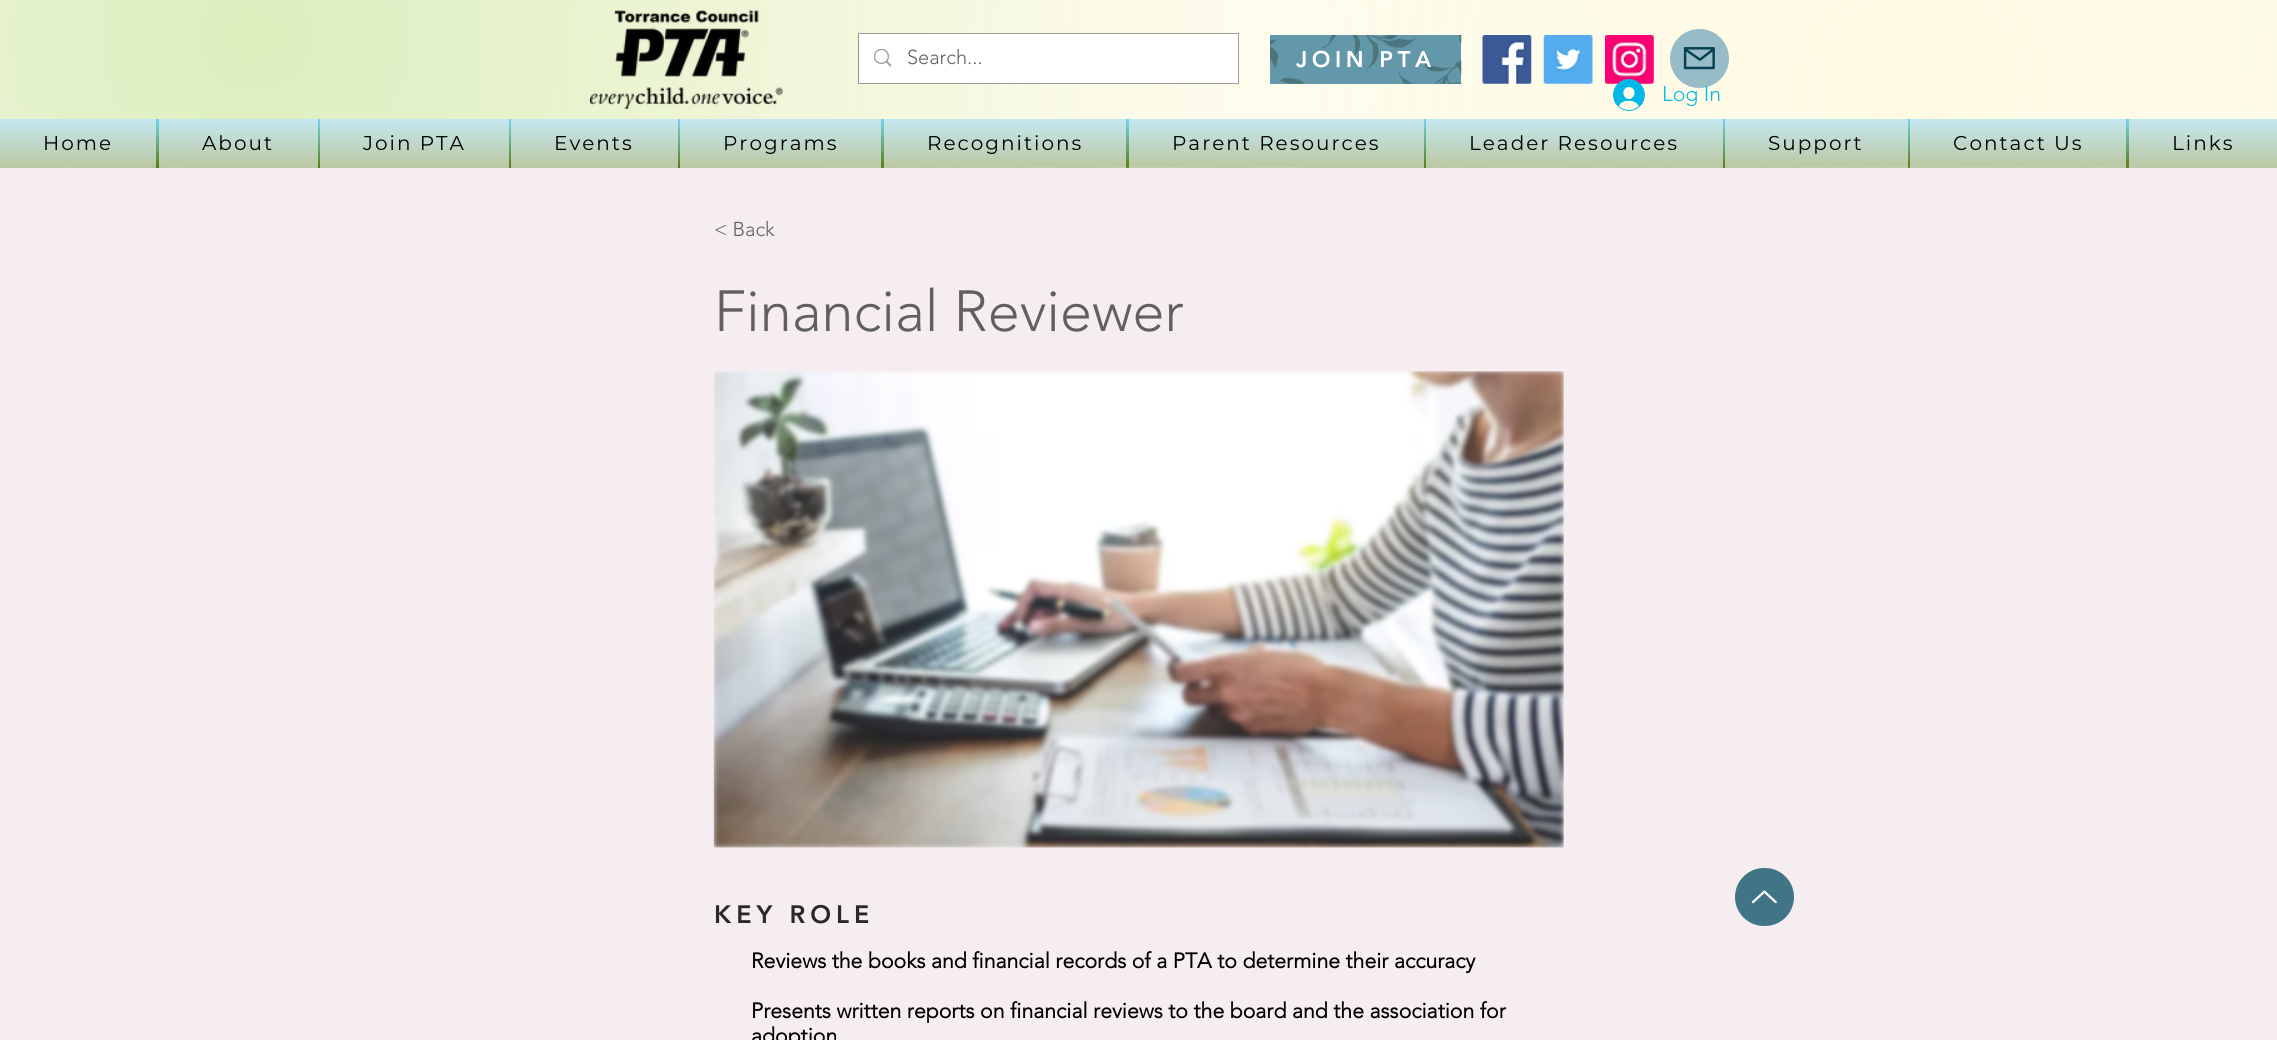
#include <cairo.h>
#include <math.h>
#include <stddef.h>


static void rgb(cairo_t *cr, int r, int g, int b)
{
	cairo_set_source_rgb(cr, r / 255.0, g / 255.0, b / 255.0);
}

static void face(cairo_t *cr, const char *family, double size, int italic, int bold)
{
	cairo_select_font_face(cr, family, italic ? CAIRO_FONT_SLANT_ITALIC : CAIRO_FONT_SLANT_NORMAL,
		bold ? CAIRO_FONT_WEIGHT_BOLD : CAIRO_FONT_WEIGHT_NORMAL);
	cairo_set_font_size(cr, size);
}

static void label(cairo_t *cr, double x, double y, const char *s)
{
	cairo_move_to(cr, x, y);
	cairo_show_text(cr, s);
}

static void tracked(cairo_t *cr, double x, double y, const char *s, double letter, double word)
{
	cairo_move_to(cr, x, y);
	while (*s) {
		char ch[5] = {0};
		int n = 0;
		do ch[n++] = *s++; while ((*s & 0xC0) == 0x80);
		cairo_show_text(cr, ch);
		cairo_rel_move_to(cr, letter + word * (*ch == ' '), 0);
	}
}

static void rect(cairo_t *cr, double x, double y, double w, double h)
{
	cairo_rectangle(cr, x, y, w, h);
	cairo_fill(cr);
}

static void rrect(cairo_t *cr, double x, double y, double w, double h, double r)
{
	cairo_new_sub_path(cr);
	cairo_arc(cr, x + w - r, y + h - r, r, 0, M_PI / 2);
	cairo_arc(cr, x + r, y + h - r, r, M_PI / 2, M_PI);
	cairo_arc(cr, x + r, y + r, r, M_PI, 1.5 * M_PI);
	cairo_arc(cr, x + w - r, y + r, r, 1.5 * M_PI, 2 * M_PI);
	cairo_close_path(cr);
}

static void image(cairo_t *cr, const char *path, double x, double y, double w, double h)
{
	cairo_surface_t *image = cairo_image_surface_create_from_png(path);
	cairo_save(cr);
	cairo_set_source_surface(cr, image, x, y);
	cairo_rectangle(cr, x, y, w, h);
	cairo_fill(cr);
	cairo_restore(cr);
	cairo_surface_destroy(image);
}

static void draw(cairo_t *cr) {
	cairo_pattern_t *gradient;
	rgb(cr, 255, 255, 255);
	cairo_paint(cr);
	gradient = cairo_pattern_create_radial(255, 36, 0, 255, 36, 2024);
	cairo_pattern_add_color_stop_rgba(gradient, 0, 0.863, 0.933, 0.737, 1);
	cairo_pattern_add_color_stop_rgba(gradient, 0.5, 1, 1, 1, 1);
	cairo_set_source(cr, gradient);
	cairo_pattern_destroy(gradient);
	rect(cr, 0, 0, 1230, 119);
	gradient = cairo_pattern_create_radial(1922, 88, 0, 1922, 88, 1924);
	cairo_pattern_add_color_stop_rgba(gradient, 0, 1, 0.937, 0.667, 0.33);
	cairo_pattern_add_color_stop_rgba(gradient, 0.92, 1, 0.937, 0.667, 0);
	cairo_set_source(cr, gradient);
	cairo_pattern_destroy(gradient);
	rect(cr, 477, 0, 1800, 119);
	image(cr, "image0.png", 590, 10, 193, 99);
	cairo_rectangle(cr, 858.5, 33.5, 380, 50);
	cairo_set_source_rgba(cr, 0.376, 0.376, 0.376, 0.6);
	cairo_set_line_width(cr, 1);
	cairo_stroke(cr);
	rgb(cr, 255, 255, 255);
	rect(cr, 859, 34, 379, 49);
	image(cr, "image1.png", 874, 49, 17, 18);
	face(cr, "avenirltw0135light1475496 Light", 20, 0, 0);
	rgb(cr, 96, 96, 96);
	label(cr, 907, 64, "Search...");
	rgb(cr, 98, 152, 170);
	rect(cr, 1270, 35, 191, 49);
	image(cr, "image2.png", 1270, 35, 192, 49);
	face(cr, "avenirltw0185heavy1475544 Black", 22.5, 0, 0);
	rgb(cr, 255, 255, 255);
	tracked(cr, 1296, 67, "JOIN PTA", 4.5, 0);
	image(cr, "image3.png", 1482, 35, 50, 49);
	image(cr, "image4.png", 1543, 35, 50, 49);
	image(cr, "image5.png", 1605, 35, 49, 49);
	rgb(cr, 151, 188, 200);
	cairo_arc(cr, 1699.5, 58.5, 29.5, 0, 2 * M_PI);
	cairo_fill(cr);
	image(cr, "image6.png", 1683, 47, 32, 23);
	image(cr, "image7.png", 1613, 79, 32, 32);
	face(cr, "avenirltw0135light1475496 Light", 21.25, 0, 0);
	rgb(cr, 0, 185, 232);
	label(cr, 1662, 101, "Log In");
	image(cr, "image8.png", 0, 119, 2277, 49);
	cairo_set_source_rgba(cr, 0.949, 0.949, 0.949, 0.63);
	rect(cr, 0, 119, 156, 49);
	face(cr, "Montserrat", 20, 0, 0);
	rgb(cr, 0, 0, 0);
	tracked(cr, 43, 150, "Home", 2, 0);
	cairo_set_source_rgba(cr, 0.949, 0.949, 0.949, 0.63);
	rect(cr, 159, 119, 159, 49);
	rgb(cr, 0, 0, 0);
	tracked(cr, 202, 150, "About", 2, 0);
	cairo_set_source_rgba(cr, 0.949, 0.949, 0.949, 0.63);
	rect(cr, 320, 119, 189, 49);
	rgb(cr, 0, 0, 0);
	tracked(cr, 363, 150, "Join PTA", 2, 0);
	cairo_set_source_rgba(cr, 0.949, 0.949, 0.949, 0.63);
	rect(cr, 511, 119, 167, 49);
	rgb(cr, 0, 0, 0);
	tracked(cr, 554, 150, "Events", 2, 0);
	cairo_set_source_rgba(cr, 0.949, 0.949, 0.949, 0.63);
	rect(cr, 680, 119, 201, 49);
	rgb(cr, 0, 0, 0);
	tracked(cr, 723, 150, "Programs", 2, 0);
	cairo_set_source_rgba(cr, 0.949, 0.949, 0.949, 0.63);
	rect(cr, 884, 119, 242, 49);
	rgb(cr, 0, 0, 0);
	tracked(cr, 927, 150, "Recognitions", 2, 0);
	cairo_set_source_rgba(cr, 0.949, 0.949, 0.949, 0.63);
	rect(cr, 1129, 119, 295, 49);
	rgb(cr, 0, 0, 0);
	tracked(cr, 1172, 150, "Parent Resources", 2, 0);
	cairo_set_source_rgba(cr, 0.949, 0.949, 0.949, 0.63);
	rect(cr, 1426, 119, 297, 49);
	rgb(cr, 0, 0, 0);
	tracked(cr, 1469, 150, "Leader Resources", 2, 0);
	cairo_set_source_rgba(cr, 0.949, 0.949, 0.949, 0.63);
	rect(cr, 1725, 119, 183, 49);
	rgb(cr, 0, 0, 0);
	tracked(cr, 1768, 150, "Support", 2, 0);
	cairo_set_source_rgba(cr, 0.949, 0.949, 0.949, 0.63);
	rect(cr, 1910, 119, 216, 49);
	rgb(cr, 0, 0, 0);
	tracked(cr, 1953, 150, "Contact Us", 2, 0);
	cairo_set_source_rgba(cr, 0.949, 0.949, 0.949, 0.63);
	rect(cr, 2129, 119, 148, 49);
	rgb(cr, 0, 0, 0);
	tracked(cr, 2172, 150, "Links", 2, 0);
	rgb(cr, 245, 237, 240);
	rect(cr, 0, 168, 2277, 872);
	face(cr, "avenirltw0135light1475496 Light", 20, 0, 0);
	rgb(cr, 96, 96, 96);
	label(cr, 714, 236, "< Back");
	face(cr, "avenirltw0135light1475496 Light", 57.5, 0, 0);
	label(cr, 714, 331, "Financial Reviewer");
	image(cr, "image9.png", 713, 371, 851, 477);
	face(cr, "avenirltw0185heavy1475544 Black", 25, 0, 0);
	rgb(cr, 41, 41, 41);
	tracked(cr, 714, 923, "KEY ROLE", 5, 0);
	face(cr, "avenirltw0135light1475496", 21.25, 0, 1);
	rgb(cr, 0, 0, 0);
	label(cr, 751, 968, "Reviews the books and financial records of a PTA to determine their accuracy");
	label(cr, 751, 1018, "Presents written reports on financial reviews to the board and the association for");
	label(cr, 751, 1043, "adoption");
	rgb(cr, 65, 117, 134);
	rrect(cr, 1735, 868, 59, 58, 29);
	cairo_fill(cr);
	image(cr, "image10.png", 1751, 890, 26, 14);
}

int main(void) {
	cairo_surface_t *surface = cairo_image_surface_create(CAIRO_FORMAT_RGB24, 2277, 1040);
	cairo_t *cr = cairo_create(surface);
	cairo_font_options_t *options = cairo_font_options_create();
	cairo_font_options_set_hint_metrics(options, CAIRO_HINT_METRICS_OFF);
	cairo_font_options_set_hint_style(options, CAIRO_HINT_STYLE_NONE);
	cairo_set_font_options(cr, options);
	cairo_set_miter_limit(cr, 4);
	draw(cr);
	cairo_surface_write_to_png(surface, "render.png");
	cairo_font_options_destroy(options);
	cairo_destroy(cr);
	cairo_surface_destroy(surface);
	return 0;
}
